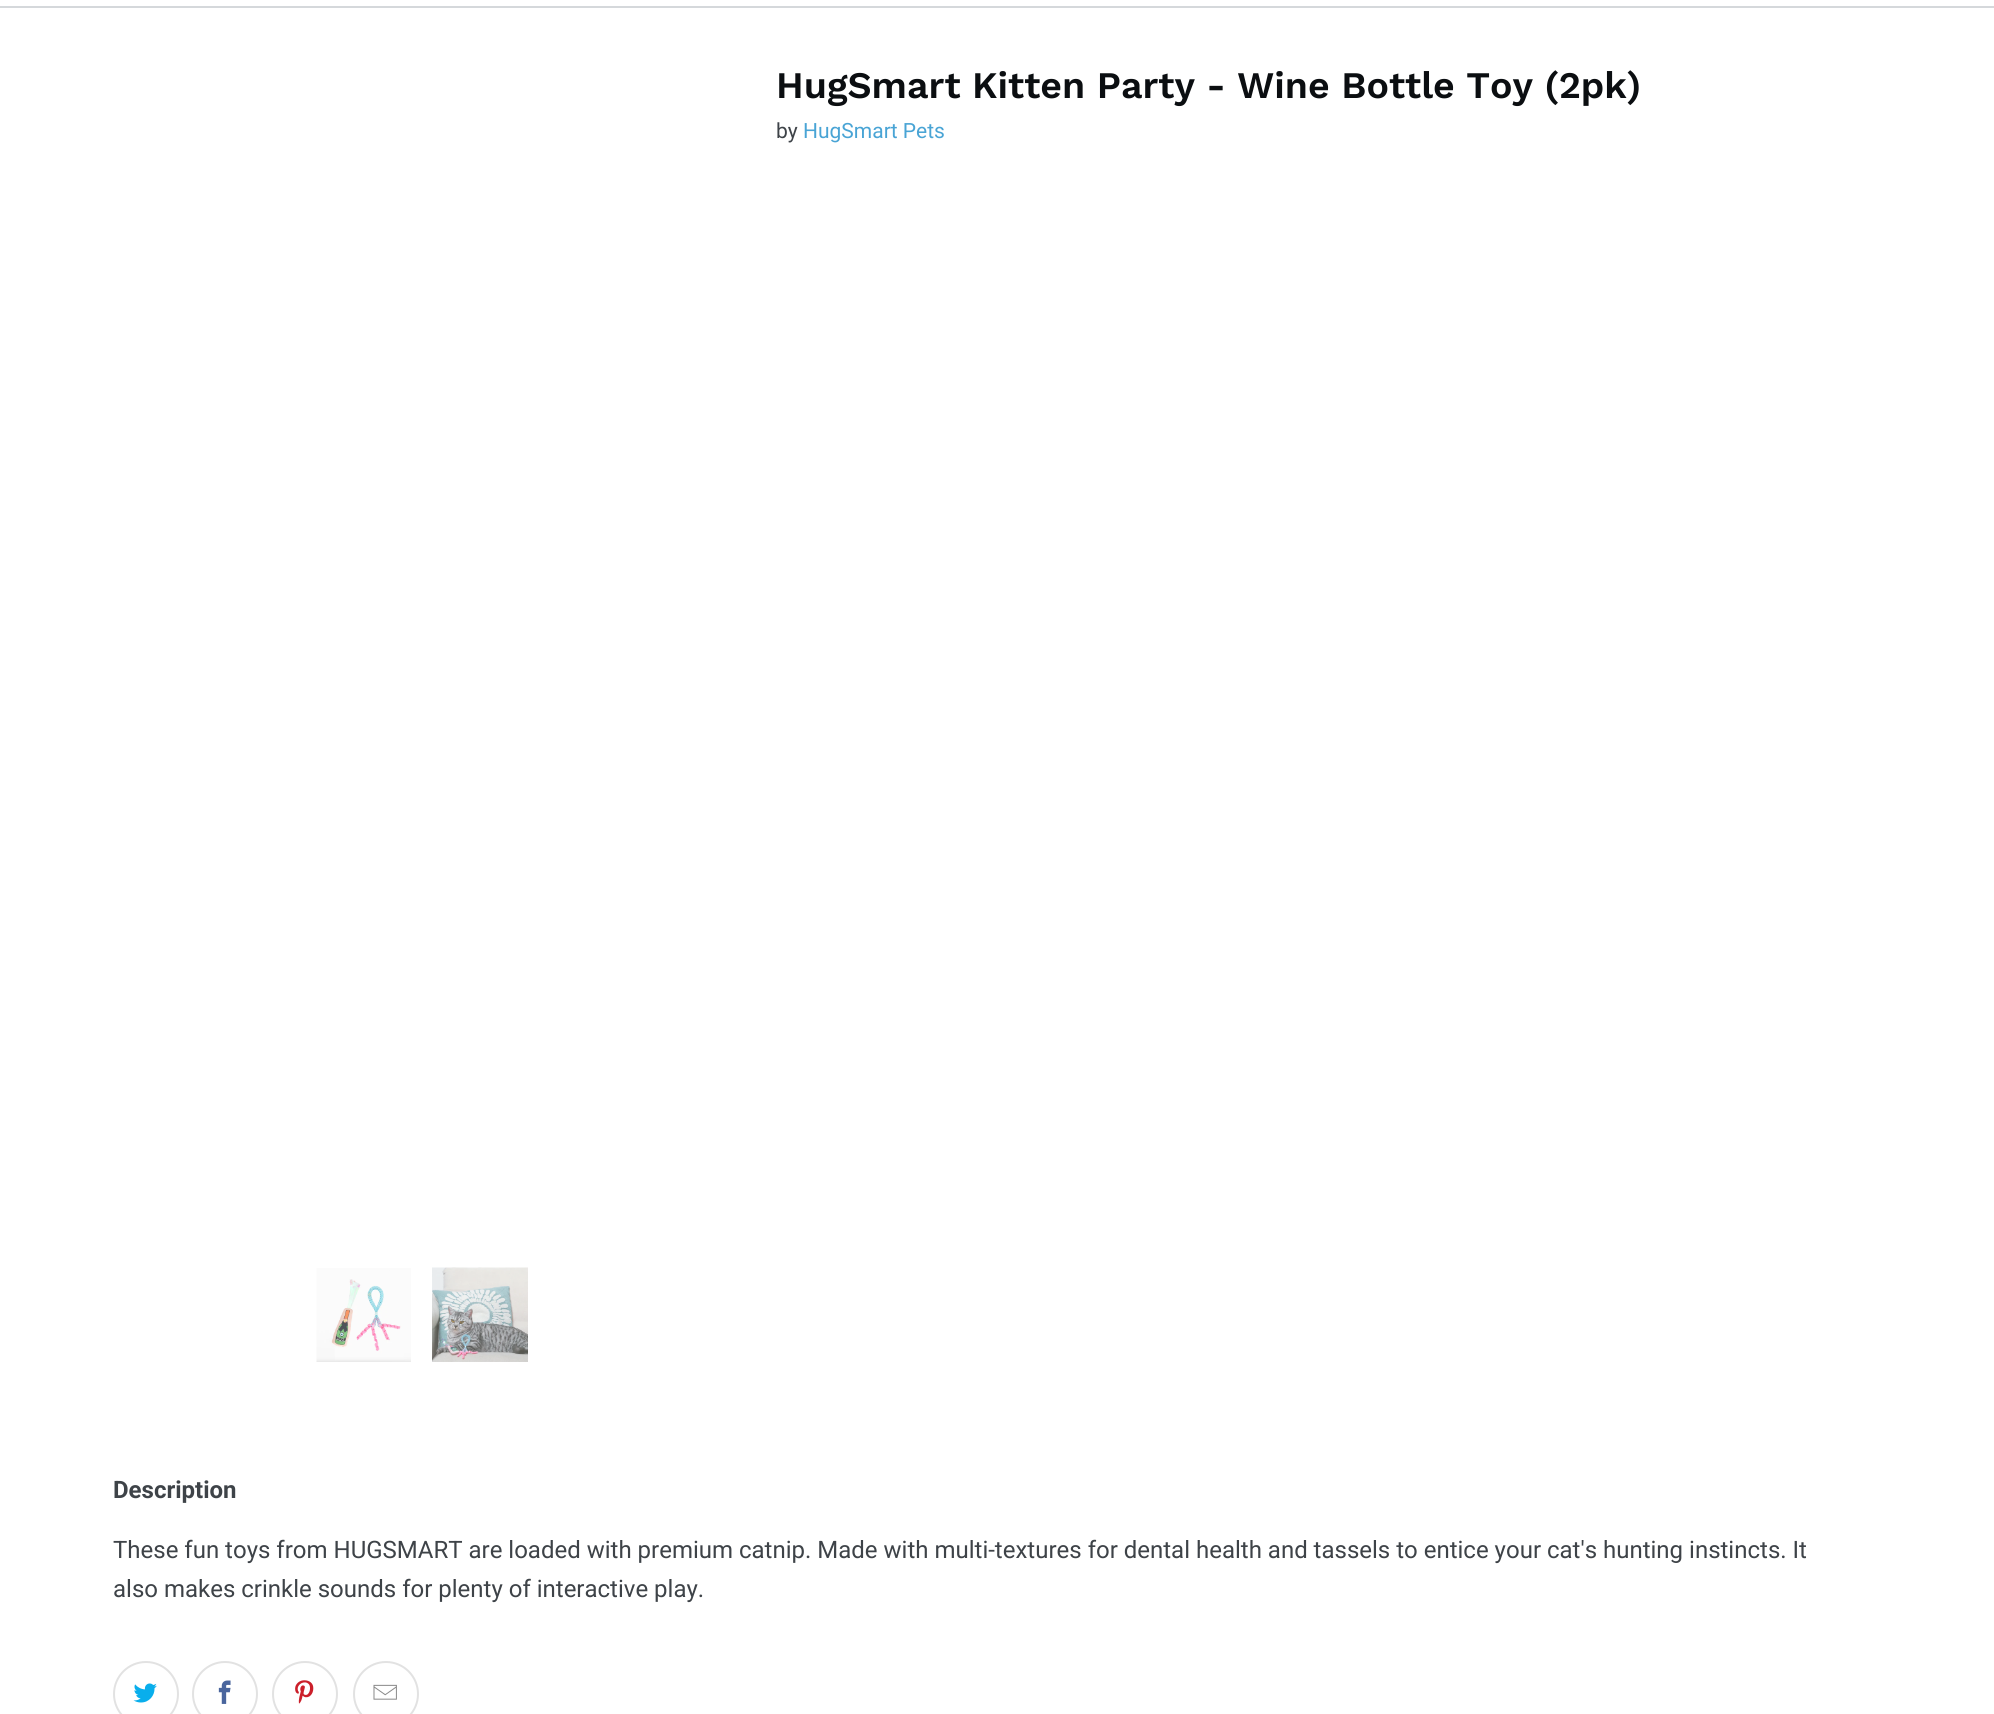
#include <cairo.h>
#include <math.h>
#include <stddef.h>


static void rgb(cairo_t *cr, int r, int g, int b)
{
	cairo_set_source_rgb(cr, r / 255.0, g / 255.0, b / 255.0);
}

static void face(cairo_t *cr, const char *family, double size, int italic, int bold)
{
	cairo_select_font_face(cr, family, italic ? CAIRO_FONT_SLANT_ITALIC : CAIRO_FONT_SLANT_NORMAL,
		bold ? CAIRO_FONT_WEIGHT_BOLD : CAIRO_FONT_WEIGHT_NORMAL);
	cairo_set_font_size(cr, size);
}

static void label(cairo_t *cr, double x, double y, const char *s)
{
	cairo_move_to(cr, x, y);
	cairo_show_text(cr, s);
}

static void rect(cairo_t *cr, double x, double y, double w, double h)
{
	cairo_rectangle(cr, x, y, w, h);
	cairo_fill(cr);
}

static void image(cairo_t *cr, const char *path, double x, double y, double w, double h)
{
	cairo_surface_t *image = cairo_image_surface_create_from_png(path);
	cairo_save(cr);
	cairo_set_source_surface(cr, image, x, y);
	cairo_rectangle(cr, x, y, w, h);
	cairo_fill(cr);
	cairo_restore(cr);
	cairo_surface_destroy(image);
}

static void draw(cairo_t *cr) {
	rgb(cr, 255, 255, 255);
	cairo_paint(cr);
	rgb(cr, 213, 216, 219);
	rect(cr, 0, 6, 1994, 2);
	face(cr, "Work Sans SemiBold", 37.5, 0, 0);
	rgb(cr, 11, 14, 17);
	label(cr, 776, 98, "HugSmart Kitten Party - Wine Bottle Toy (2pk)");
	face(cr, "Roboto", 21, 0, 0);
	rgb(cr, 62, 67, 72);
	label(cr, 776, 138, "by");
	rgb(cr, 73, 164, 213);
	label(cr, 803, 138, "HugSmart Pets");
	image(cr, "image0.png", 316, 1268, 95, 94);
	image(cr, "image1.png", 432, 1267, 96, 95);
	face(cr, "Roboto", 24, 0, 1);
	rgb(cr, 62, 67, 72);
	label(cr, 113, 1498, "Description");
	face(cr, "Roboto", 24, 0, 0);
	label(cr, 113, 1558, "These fun toys from HUGSMART are loaded with premium catnip. Made with multi-textures for dental health and tassels to entice your cat's hunting instincts. It");
	label(cr, 113, 1597, "also makes crinkle sounds for plenty of interactive play.");
	cairo_new_path(cr);
	cairo_arc(cr, 146, 1694, 32, 0, 2 * M_PI);
	rgb(cr, 226, 226, 226);
	cairo_stroke(cr);
	image(cr, "image2.png", 133, 1683, 24, 20);
	cairo_arc(cr, 225, 1694, 32, 0, 2 * M_PI);
	cairo_stroke(cr);
	image(cr, "image3.png", 218, 1680, 13, 24);
	cairo_arc(cr, 305, 1694, 32, 0, 2 * M_PI);
	cairo_stroke(cr);
	image(cr, "image4.png", 295, 1680, 19, 24);
	cairo_arc(cr, 386, 1694, 32, 0, 2 * M_PI);
	cairo_stroke(cr);
	image(cr, "image5.png", 373, 1684, 24, 16);
}

int main(void) {
	cairo_surface_t *surface = cairo_image_surface_create(CAIRO_FORMAT_RGB24, 1994, 1714);
	cairo_t *cr = cairo_create(surface);
	cairo_font_options_t *options = cairo_font_options_create();
	cairo_font_options_set_hint_metrics(options, CAIRO_HINT_METRICS_OFF);
	cairo_font_options_set_hint_style(options, CAIRO_HINT_STYLE_NONE);
	cairo_set_font_options(cr, options);
	cairo_set_miter_limit(cr, 4);
	draw(cr);
	cairo_surface_write_to_png(surface, "render.png");
	cairo_font_options_destroy(options);
	cairo_destroy(cr);
	cairo_surface_destroy(surface);
	return 0;
}
